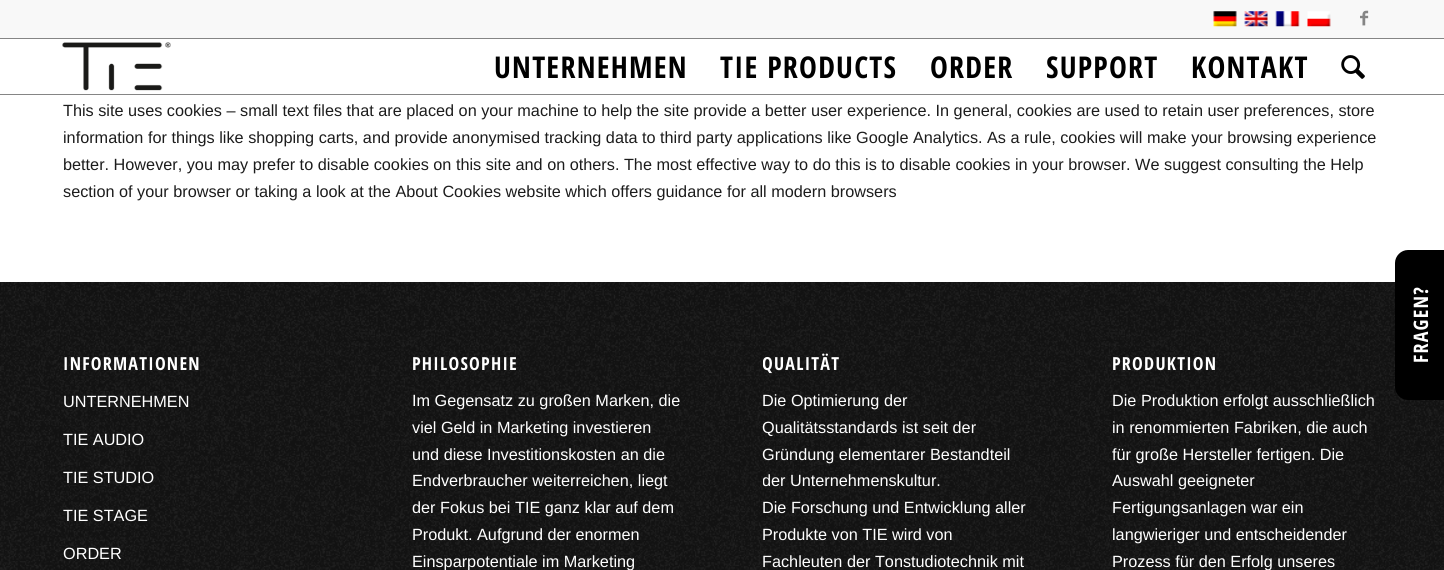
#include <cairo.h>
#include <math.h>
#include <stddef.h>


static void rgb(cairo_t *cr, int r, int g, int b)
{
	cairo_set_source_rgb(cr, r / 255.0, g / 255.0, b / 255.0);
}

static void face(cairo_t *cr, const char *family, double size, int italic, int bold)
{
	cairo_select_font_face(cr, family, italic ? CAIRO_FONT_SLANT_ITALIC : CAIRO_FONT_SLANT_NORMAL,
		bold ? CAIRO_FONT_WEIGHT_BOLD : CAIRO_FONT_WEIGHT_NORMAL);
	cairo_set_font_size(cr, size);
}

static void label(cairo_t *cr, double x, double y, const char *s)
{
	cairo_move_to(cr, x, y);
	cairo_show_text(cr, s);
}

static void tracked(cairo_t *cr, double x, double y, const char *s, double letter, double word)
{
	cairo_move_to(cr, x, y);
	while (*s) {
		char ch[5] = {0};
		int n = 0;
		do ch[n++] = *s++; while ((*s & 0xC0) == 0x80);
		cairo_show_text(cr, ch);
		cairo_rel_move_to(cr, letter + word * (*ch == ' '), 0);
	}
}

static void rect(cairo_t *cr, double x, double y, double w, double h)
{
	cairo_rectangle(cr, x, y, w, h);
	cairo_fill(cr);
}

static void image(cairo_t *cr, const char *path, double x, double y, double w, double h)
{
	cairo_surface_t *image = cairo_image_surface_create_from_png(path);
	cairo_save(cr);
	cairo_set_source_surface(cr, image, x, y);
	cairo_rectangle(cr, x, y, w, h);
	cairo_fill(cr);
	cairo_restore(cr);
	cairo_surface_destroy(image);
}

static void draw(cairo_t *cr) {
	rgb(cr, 255, 255, 255);
	cairo_paint(cr);
	rgb(cr, 248, 248, 248);
	rect(cr, 0, 0, 1444, 38);
	rgb(cr, 133, 133, 133);
	rect(cr, 0, 38, 1444, 1);
	image(cr, "image0.png", 1213, 11, 24, 16);
	image(cr, "image1.png", 1244, 11, 24, 16);
	image(cr, "image2.png", 1275, 11, 25, 16);
	image(cr, "image3.png", 1307, 11, 24, 16);
	image(cr, "image4.png", 1360, 10, 9, 16);
	rect(cr, 0, 94, 1444, 1);
	image(cr, "image5.png", 62, 42, 109, 49);
	face(cr, "Open Sans Condensed", 30, 0, 1);
	rgb(cr, 0, 0, 0);
	tracked(cr, 494, 78, "UNTERNEHMEN", 1.25, 0);
	tracked(cr, 720, 78, "TIE PRODUCTS", 1.25, 0);
	tracked(cr, 930, 78, "ORDER", 1.25, 0);
	tracked(cr, 1046, 78, "SUPPORT", 1.25, 0);
	tracked(cr, 1191, 78, "KONTAKT", 1.25, 0);
	image(cr, "image6.png", 1341, 55, 24, 24);
	face(cr, "Liberation Sans", 16.25, 0, 0);
	rgb(cr, 28, 28, 28);
	label(cr, 63, 116, "This site uses cookies – small text files that are placed on your machine to help the site provide a better user experience. In general, cookies are used to retain user preferences, store");
	label(cr, 63, 143, "information for things like shopping carts, and provide anonymised tracking data to third party applications like Google Analytics. As a rule, cookies will make your browsing experience");
	label(cr, 63, 170, "better. However, you may prefer to disable cookies on this site and on others. The most effective way to do this is to disable cookies in your browser. We suggest consulting the Help");
	label(cr, 63, 197, "section of your browser or taking a look at the About Cookies website which offers guidance for all modern browsers");
	rgb(cr, 20, 20, 20);
	rect(cr, 0, 282, 1444, 288);
	image(cr, "image7.png", 0, 282, 1444, 288);
	face(cr, "Open Sans Condensed", 18, 0, 1);
	rgb(cr, 255, 255, 255);
	tracked(cr, 63, 370, "INFORMATIONEN", 1.25, 0);
	face(cr, "Liberation Sans", 16.25, 0, 0);
	label(cr, 63, 407, "UNTERNEHMEN");
	label(cr, 63, 445, "TIE AUDIO");
	label(cr, 63, 483, "TIE STUDIO");
	label(cr, 63, 521, "TIE STAGE");
	label(cr, 63, 559, "ORDER");
	face(cr, "Open Sans Condensed", 18, 0, 1);
	tracked(cr, 412, 370, "PHILOSOPHIE", 1.25, 0);
	face(cr, "Liberation Sans", 16.25, 0, 0);
	label(cr, 412, 406, "Im Gegensatz zu großen Marken, die");
	label(cr, 412, 433, "viel Geld in Marketing investieren");
	label(cr, 412, 460, "und diese Investitionskosten an die");
	label(cr, 412, 486, "Endverbraucher weiterreichen, liegt");
	label(cr, 412, 513, "der Fokus bei TIE ganz klar auf dem");
	label(cr, 412, 540, "Produkt. Aufgrund der enormen");
	label(cr, 412, 567, "Einsparpotentiale im Marketing");
	cairo_save(cr);
	cairo_rectangle(cr, 763, 339, 270, 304);
	cairo_clip(cr);
	face(cr, "Open Sans Condensed", 18, 0, 1);
	tracked(cr, 762, 370, "QUALITÄT", 1.25, 0);
	cairo_restore(cr);
	label(cr, 762, 406, "Die Optimierung der");
	label(cr, 762, 433, "Qualitätsstandards ist seit der");
	label(cr, 762, 460, "Gründung elementarer Bestandteil");
	cairo_save(cr);
	cairo_rectangle(cr, 763, 339, 270, 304);
	cairo_clip(cr);
	label(cr, 762, 486, "der Unternehmenskultur.");
	cairo_restore(cr);
	label(cr, 762, 513, "Die Forschung und Entwicklung aller");
	label(cr, 762, 540, "Produkte von TIE wird von");
	label(cr, 762, 567, "Fachleuten der Tonstudiotechnik mit");
	face(cr, "Open Sans Condensed", 18, 0, 1);
	tracked(cr, 1112, 370, "PRODUKTION", 1.25, 0);
	face(cr, "Liberation Sans", 16.25, 0, 0);
	label(cr, 1112, 406, "Die Produktion erfolgt ausschließlich");
	label(cr, 1112, 433, "in renommierten Fabriken, die auch");
	label(cr, 1112, 460, "für große Hersteller fertigen. Die");
	label(cr, 1112, 486, "Auswahl geeigneter");
	label(cr, 1112, 513, "Fertigungsanlagen war ein");
	label(cr, 1112, 540, "langwieriger und entscheidender");
	label(cr, 1112, 567, "Prozess für den Erfolg unseres");
	rgb(cr, 0, 0, 0);
	cairo_new_path(cr);
	cairo_move_to(cr, 1408, 250);
	cairo_line_to(cr, 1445, 250);
	cairo_line_to(cr, 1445, 400);
	cairo_line_to(cr, 1408, 400);
	cairo_curve_to(cr, 1401, 400, 1395, 394, 1395, 387);
	cairo_line_to(cr, 1395, 263);
	cairo_curve_to(cr, 1395, 256, 1401, 250, 1408, 250);
	cairo_close_path(cr);
	cairo_fill(cr);
	face(cr, "Open Sans Condensed", 20, 0, 1);
	rgb(cr, 255, 255, 255);
	cairo_save(cr);
	cairo_translate(cr, 1428, 363);
	cairo_rotate(cr, -90 * M_PI / 180);
	tracked(cr, 0, 0, "FRAGEN?", 1.25, 0);
	cairo_restore(cr);
}

int main(void) {
	cairo_surface_t *surface = cairo_image_surface_create(CAIRO_FORMAT_RGB24, 1444, 570);
	cairo_t *cr = cairo_create(surface);
	cairo_font_options_t *options = cairo_font_options_create();
	cairo_font_options_set_hint_metrics(options, CAIRO_HINT_METRICS_OFF);
	cairo_font_options_set_hint_style(options, CAIRO_HINT_STYLE_NONE);
	cairo_set_font_options(cr, options);
	cairo_set_miter_limit(cr, 4);
	draw(cr);
	cairo_surface_write_to_png(surface, "render.png");
	cairo_font_options_destroy(options);
	cairo_destroy(cr);
	cairo_surface_destroy(surface);
	return 0;
}
